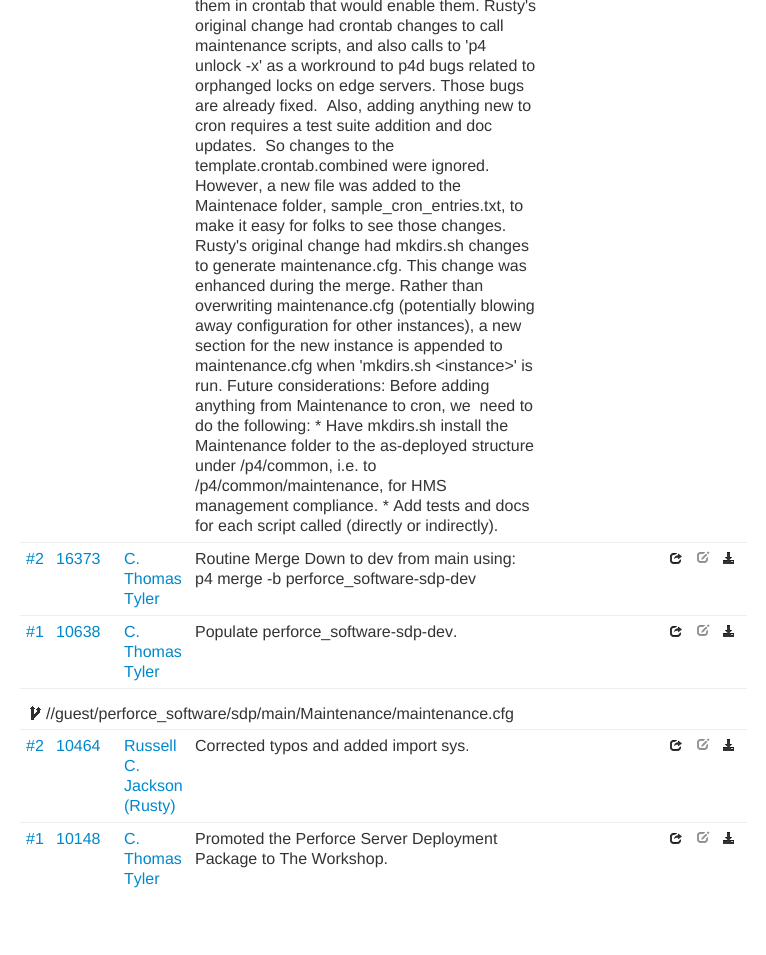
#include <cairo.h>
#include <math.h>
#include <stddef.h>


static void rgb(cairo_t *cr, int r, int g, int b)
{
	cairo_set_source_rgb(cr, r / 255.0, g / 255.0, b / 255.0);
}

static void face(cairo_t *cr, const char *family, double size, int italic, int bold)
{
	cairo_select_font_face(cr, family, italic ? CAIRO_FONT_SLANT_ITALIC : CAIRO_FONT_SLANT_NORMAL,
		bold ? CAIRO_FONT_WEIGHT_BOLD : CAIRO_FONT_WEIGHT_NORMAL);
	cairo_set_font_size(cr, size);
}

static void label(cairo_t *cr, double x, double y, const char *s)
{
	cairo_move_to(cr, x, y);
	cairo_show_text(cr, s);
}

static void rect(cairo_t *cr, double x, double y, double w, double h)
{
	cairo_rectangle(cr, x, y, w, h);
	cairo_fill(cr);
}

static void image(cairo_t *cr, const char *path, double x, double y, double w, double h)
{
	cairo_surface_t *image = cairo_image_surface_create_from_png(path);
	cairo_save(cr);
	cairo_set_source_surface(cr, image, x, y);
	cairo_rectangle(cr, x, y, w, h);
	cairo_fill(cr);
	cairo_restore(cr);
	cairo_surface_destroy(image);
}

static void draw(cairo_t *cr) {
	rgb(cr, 255, 255, 255);
	cairo_paint(cr);
	face(cr, "Arimo", 16, 0, 0);
	rgb(cr, 51, 51, 51);
	label(cr, 195, 11, "them in crontab that would enable them. Rusty's");
	label(cr, 195, 31, "original change had crontab changes to call");
	label(cr, 195, 51, "maintenance scripts, and also calls to 'p4");
	label(cr, 195, 71, "unlock -x' as a workround to p4d bugs related to");
	label(cr, 195, 91, "orphanged locks on edge servers. Those bugs");
	label(cr, 195, 111, "are already fixed.  Also, adding anything new to");
	label(cr, 195, 131, "cron requires a test suite addition and doc");
	label(cr, 195, 151, "updates.  So changes to the");
	label(cr, 195, 171, "template.crontab.combined were ignored.");
	label(cr, 195, 191, "However, a new file was added to the");
	label(cr, 195, 211, "Maintenace folder, sample_cron_entries.txt, to");
	label(cr, 195, 231, "make it easy for folks to see those changes.");
	label(cr, 195, 251, "Rusty's original change had mkdirs.sh changes");
	label(cr, 195, 271, "to generate maintenance.cfg. This change was");
	label(cr, 195, 291, "enhanced during the merge. Rather than");
	label(cr, 195, 311, "overwriting maintenance.cfg (potentially blowing");
	label(cr, 195, 331, "away configuration for other instances), a new");
	label(cr, 195, 351, "section for the new instance is appended to");
	label(cr, 195, 371, "maintenance.cfg when 'mkdirs.sh <instance>' is");
	label(cr, 195, 391, "run. Future considerations: Before adding");
	label(cr, 195, 411, "anything from Maintenance to cron, we  need to");
	label(cr, 195, 431, "do the following: * Have mkdirs.sh install the");
	label(cr, 195, 451, "Maintenance folder to the as-deployed structure");
	label(cr, 195, 471, "under /p4/common, i.e. to");
	label(cr, 195, 491, "/p4/common/maintenance, for HMS");
	label(cr, 195, 511, "management compliance. * Add tests and docs");
	label(cr, 195, 531, "for each script called (directly or indirectly).");
	rgb(cr, 238, 238, 238);
	rect(cr, 20, 542, 727, 1);
	image(cr, "image0.png", 670, 553, 12, 11);
	image(cr, "image1.png", 697, 551, 13, 12);
	image(cr, "image2.png", 723, 552, 11, 12);
	rgb(cr, 0, 136, 204);
	label(cr, 26, 564, "#2");
	label(cr, 56, 564, "16373");
	label(cr, 124, 564, "C.");
	label(cr, 124, 584, "Thomas");
	label(cr, 124, 604, "Tyler");
	rgb(cr, 51, 51, 51);
	label(cr, 195, 564, "Routine Merge Down to dev from main using:");
	label(cr, 195, 584, "p4 merge -b perforce_software-sdp-dev");
	rgb(cr, 238, 238, 238);
	rect(cr, 20, 615, 727, 1);
	image(cr, "image0.png", 670, 626, 12, 11);
	image(cr, "image1.png", 697, 624, 13, 12);
	image(cr, "image2.png", 723, 625, 11, 12);
	rgb(cr, 0, 136, 204);
	label(cr, 26, 637, "#1");
	label(cr, 56, 637, "10638");
	label(cr, 124, 637, "C.");
	label(cr, 124, 657, "Thomas");
	label(cr, 124, 677, "Tyler");
	rgb(cr, 51, 51, 51);
	label(cr, 195, 637, "Populate perforce_software-sdp-dev.");
	rgb(cr, 238, 238, 238);
	rect(cr, 20, 688, 727, 1);
	image(cr, "image3.png", 30, 706, 11, 14);
	rgb(cr, 51, 51, 51);
	label(cr, 46, 719, "//guest/perforce_software/sdp/main/Maintenance/maintenance.cfg");
	rgb(cr, 238, 238, 238);
	rect(cr, 20, 729, 727, 1);
	image(cr, "image0.png", 670, 740, 12, 11);
	image(cr, "image1.png", 697, 738, 13, 12);
	image(cr, "image2.png", 723, 739, 11, 12);
	rgb(cr, 0, 136, 204);
	label(cr, 26, 751, "#2");
	label(cr, 56, 751, "10464");
	label(cr, 124, 751, "Russell");
	label(cr, 124, 771, "C.");
	label(cr, 124, 791, "Jackson");
	label(cr, 124, 811, "(Rusty)");
	rgb(cr, 51, 51, 51);
	label(cr, 195, 751, "Corrected typos and added import sys.");
	rgb(cr, 238, 238, 238);
	rect(cr, 20, 822, 727, 1);
	image(cr, "image0.png", 670, 833, 12, 11);
	image(cr, "image1.png", 697, 831, 13, 12);
	image(cr, "image2.png", 723, 832, 11, 12);
	rgb(cr, 0, 136, 204);
	label(cr, 26, 844, "#1");
	label(cr, 56, 844, "10148");
	label(cr, 124, 844, "C.");
	label(cr, 124, 864, "Thomas");
	label(cr, 124, 884, "Tyler");
	rgb(cr, 51, 51, 51);
	label(cr, 195, 844, "Promoted the Perforce Server Deployment");
	label(cr, 195, 864, "Package to The Workshop.");
}

int main(void) {
	cairo_surface_t *surface = cairo_image_surface_create(CAIRO_FORMAT_RGB24, 766, 955);
	cairo_t *cr = cairo_create(surface);
	cairo_font_options_t *options = cairo_font_options_create();
	cairo_font_options_set_hint_metrics(options, CAIRO_HINT_METRICS_OFF);
	cairo_font_options_set_hint_style(options, CAIRO_HINT_STYLE_NONE);
	cairo_set_font_options(cr, options);
	cairo_set_miter_limit(cr, 4);
	draw(cr);
	cairo_surface_write_to_png(surface, "render.png");
	cairo_font_options_destroy(options);
	cairo_destroy(cr);
	cairo_surface_destroy(surface);
	return 0;
}
